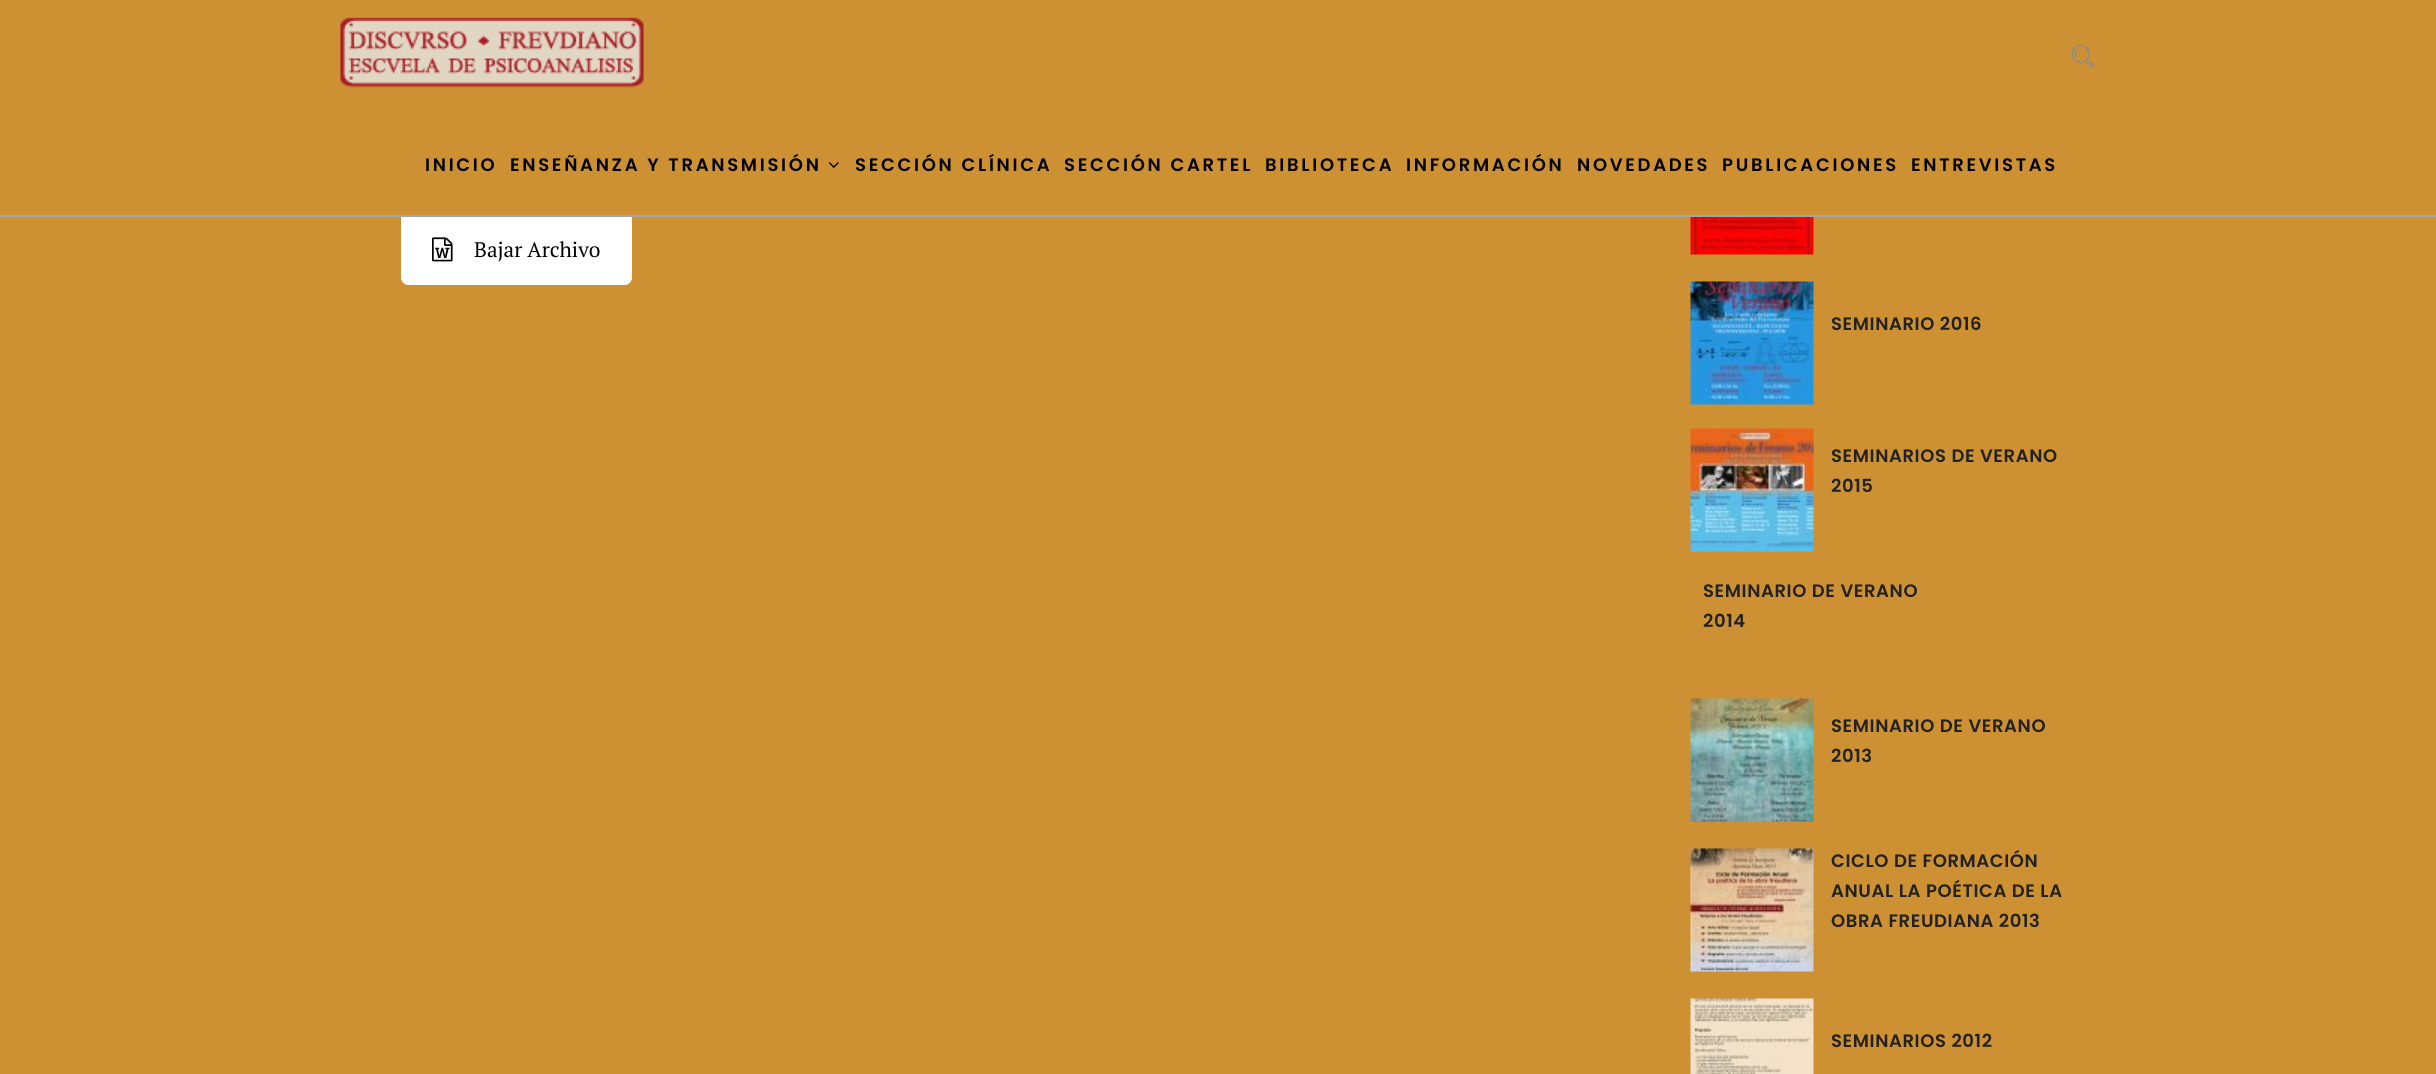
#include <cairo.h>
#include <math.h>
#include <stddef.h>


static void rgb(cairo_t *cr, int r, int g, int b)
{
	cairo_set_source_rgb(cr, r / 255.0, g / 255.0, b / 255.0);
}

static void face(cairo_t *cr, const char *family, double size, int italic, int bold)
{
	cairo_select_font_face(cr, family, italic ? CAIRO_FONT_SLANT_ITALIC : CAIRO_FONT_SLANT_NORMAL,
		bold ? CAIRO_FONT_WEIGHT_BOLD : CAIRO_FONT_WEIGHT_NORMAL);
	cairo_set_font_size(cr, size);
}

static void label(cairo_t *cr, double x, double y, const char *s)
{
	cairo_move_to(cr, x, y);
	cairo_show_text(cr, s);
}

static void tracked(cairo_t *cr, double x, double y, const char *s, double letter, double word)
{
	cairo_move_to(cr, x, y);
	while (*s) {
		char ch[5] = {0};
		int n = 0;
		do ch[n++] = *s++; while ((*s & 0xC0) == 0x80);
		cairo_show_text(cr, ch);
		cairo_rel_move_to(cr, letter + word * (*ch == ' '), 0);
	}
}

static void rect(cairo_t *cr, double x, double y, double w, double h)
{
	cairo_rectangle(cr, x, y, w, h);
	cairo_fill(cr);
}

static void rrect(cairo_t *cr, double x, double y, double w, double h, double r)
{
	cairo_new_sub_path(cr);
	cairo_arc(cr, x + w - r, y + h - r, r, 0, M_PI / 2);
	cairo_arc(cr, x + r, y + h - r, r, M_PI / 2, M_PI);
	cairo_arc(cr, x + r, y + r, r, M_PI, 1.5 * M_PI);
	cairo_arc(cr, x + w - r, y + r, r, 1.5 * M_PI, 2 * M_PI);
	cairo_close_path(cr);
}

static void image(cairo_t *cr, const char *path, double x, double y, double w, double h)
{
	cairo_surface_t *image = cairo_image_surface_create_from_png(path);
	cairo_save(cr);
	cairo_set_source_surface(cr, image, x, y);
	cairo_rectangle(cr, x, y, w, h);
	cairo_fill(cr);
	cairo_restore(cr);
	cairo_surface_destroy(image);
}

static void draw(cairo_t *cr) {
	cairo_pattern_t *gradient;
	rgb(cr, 205, 144, 50);
	cairo_paint(cr);
	rgb(cr, 255, 255, 255);
	rrect(cr, 401, 212, 231, 73, 8);
	cairo_fill(cr);
	gradient = cairo_pattern_create_linear(516, 213, 516, 284);
	cairo_pattern_add_color_stop_rgba(gradient, 0, 1, 1, 1, 0.2);
	cairo_pattern_add_color_stop_rgba(gradient, 1, 1, 1, 1, 0.01);
	cairo_set_source(cr, gradient);
	cairo_pattern_destroy(gradient);
	rect(cr, 401, 217, 231, 2);
	rrect(cr, 402, 213, 229, 71, 7);
	rgb(cr, 255, 255, 255);
	cairo_stroke(cr);
	rgb(cr, 205, 144, 50);
	rect(cr, 402, 212, 229, 3);
	rgb(cr, 165, 165, 165);
	rect(cr, 0, 215, 2436, 2);
	image(cr, "image0.png", 340, 17, 304, 71);
	image(cr, "image1.png", 2071, 44, 23, 24);
	face(cr, "Poppins SemiBold", 18, 0, 0);
	rgb(cr, 0, 0, 0);
	tracked(cr, 425, 171, "INICIO", 2.7, 0);
	tracked(cr, 510, 171, "ENSEÑANZA Y TRANSMISIÓN", 2.7, 0);
	image(cr, "image2.png", 828, 162, 11, 6);
	tracked(cr, 855, 171, "SECCIÓN CLÍNICA", 2.7, 0);
	tracked(cr, 1064, 171, "SECCIÓN CARTEL", 2.7, 0);
	tracked(cr, 1265, 171, "BIBLIOTECA", 2.7, 0);
	tracked(cr, 1406, 171, "INFORMACIÓN", 2.7, 0);
	tracked(cr, 1577, 171, "NOVEDADES", 2.7, 0);
	tracked(cr, 1722, 171, "PUBLICACIONES", 2.7, 0);
	tracked(cr, 1911, 171, "ENTREVISTAS", 2.7, 0);
	image(cr, "image3.png", 432, 237, 21, 25);
	face(cr, "PT Serif", 21, 0, 0);
	label(cr, 474, 257, "Bajar Archivo");
	image(cr, "image4.png", 1690, 217, 124, 38);
	image(cr, "image5.png", 1690, 281, 124, 124);
	face(cr, "Poppins SemiBold", 18, 0, 0);
	rgb(cr, 34, 34, 34);
	tracked(cr, 1831, 330, "SEMINARIO 2016", 0.6, 0);
	image(cr, "image6.png", 1690, 428, 124, 124);
	tracked(cr, 1831, 462, "SEMINARIOS DE VERANO", 0.6, 0);
	tracked(cr, 1831, 492, "2015", 0.6, 0);
	tracked(cr, 1703, 597, "SEMINARIO DE VERANO", 0.6, 0);
	tracked(cr, 1703, 627, "2014", 0.6, 0);
	image(cr, "image7.png", 1690, 698, 124, 124);
	tracked(cr, 1831, 732, "SEMINARIO DE VERANO", 0.6, 0);
	tracked(cr, 1831, 762, "2013", 0.6, 0);
	image(cr, "image8.png", 1690, 848, 124, 124);
	tracked(cr, 1831, 867, "CICLO DE FORMACIÓN", 0.6, 0);
	tracked(cr, 1831, 897, "ANUAL LA POÉTICA DE LA", 0.6, 0);
	tracked(cr, 1831, 927, "OBRA FREUDIANA 2013", 0.6, 0);
	image(cr, "image9.png", 1690, 998, 124, 76);
	tracked(cr, 1831, 1047, "SEMINARIOS 2012", 0.6, 0);
}

int main(void) {
	cairo_surface_t *surface = cairo_image_surface_create(CAIRO_FORMAT_RGB24, 2436, 1074);
	cairo_t *cr = cairo_create(surface);
	cairo_font_options_t *options = cairo_font_options_create();
	cairo_font_options_set_hint_metrics(options, CAIRO_HINT_METRICS_OFF);
	cairo_font_options_set_hint_style(options, CAIRO_HINT_STYLE_NONE);
	cairo_set_font_options(cr, options);
	cairo_set_miter_limit(cr, 4);
	draw(cr);
	cairo_surface_write_to_png(surface, "render.png");
	cairo_font_options_destroy(options);
	cairo_destroy(cr);
	cairo_surface_destroy(surface);
	return 0;
}
